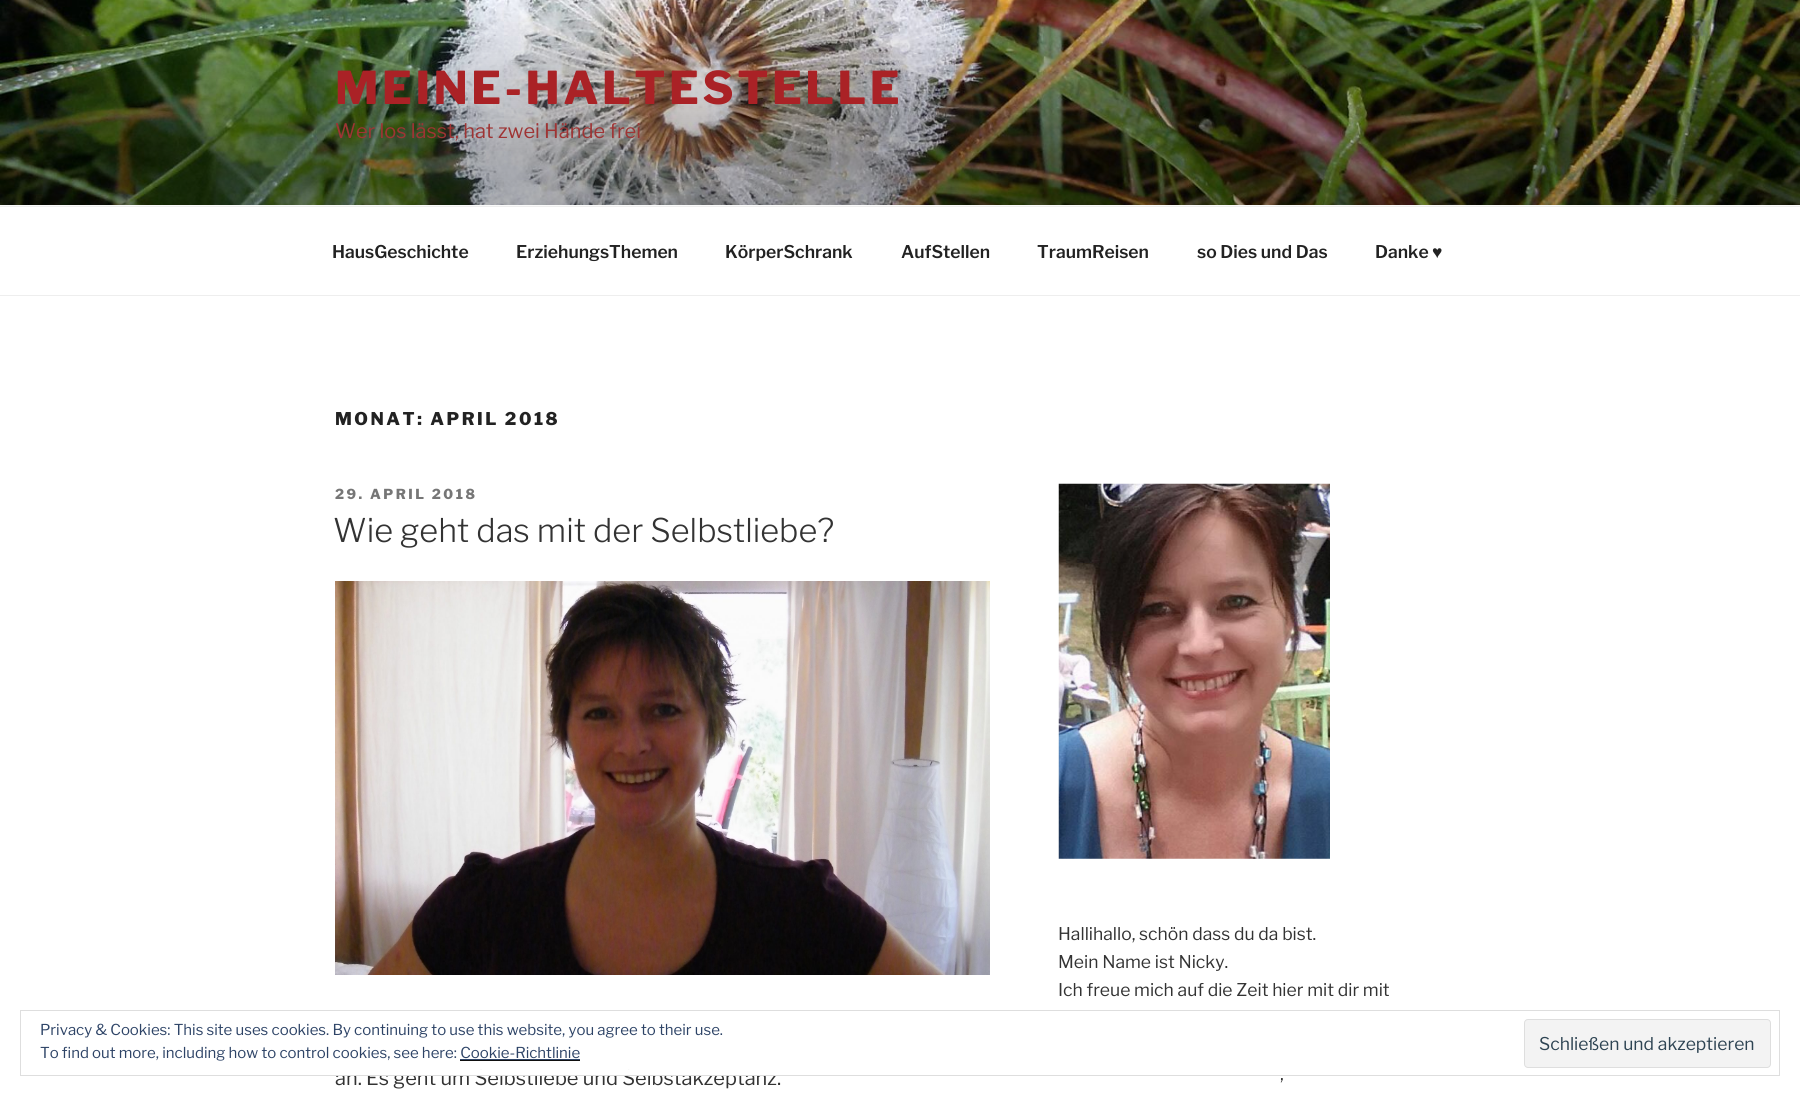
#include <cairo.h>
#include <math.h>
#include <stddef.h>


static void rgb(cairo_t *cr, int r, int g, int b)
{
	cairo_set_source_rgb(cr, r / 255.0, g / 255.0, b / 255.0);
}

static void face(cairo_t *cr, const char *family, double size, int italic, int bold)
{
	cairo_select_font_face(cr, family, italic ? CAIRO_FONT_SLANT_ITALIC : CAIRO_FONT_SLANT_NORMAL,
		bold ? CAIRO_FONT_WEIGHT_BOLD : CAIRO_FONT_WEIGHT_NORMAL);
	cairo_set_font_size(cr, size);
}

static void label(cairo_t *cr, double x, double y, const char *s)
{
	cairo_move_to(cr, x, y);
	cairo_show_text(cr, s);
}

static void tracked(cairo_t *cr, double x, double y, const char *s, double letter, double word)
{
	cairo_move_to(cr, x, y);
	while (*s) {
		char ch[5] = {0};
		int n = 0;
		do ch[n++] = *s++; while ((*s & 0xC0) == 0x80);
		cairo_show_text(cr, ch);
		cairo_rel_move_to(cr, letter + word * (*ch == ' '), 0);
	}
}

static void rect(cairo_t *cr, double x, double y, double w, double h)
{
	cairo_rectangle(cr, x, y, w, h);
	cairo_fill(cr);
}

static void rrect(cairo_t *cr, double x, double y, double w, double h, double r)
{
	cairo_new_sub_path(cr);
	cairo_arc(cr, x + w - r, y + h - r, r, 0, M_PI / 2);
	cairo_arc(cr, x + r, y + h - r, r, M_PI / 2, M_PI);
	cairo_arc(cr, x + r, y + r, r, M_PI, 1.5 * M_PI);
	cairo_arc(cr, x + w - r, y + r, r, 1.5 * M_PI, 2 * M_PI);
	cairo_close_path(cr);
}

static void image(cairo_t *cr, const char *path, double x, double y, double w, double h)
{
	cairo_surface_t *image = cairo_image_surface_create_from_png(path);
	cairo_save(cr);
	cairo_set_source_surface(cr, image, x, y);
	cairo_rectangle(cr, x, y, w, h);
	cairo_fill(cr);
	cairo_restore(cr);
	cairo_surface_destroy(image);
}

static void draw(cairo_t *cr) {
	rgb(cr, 255, 255, 255);
	cairo_paint(cr);
	rgb(cr, 250, 250, 250);
	rect(cr, 0, 205, 1800, 1);
	image(cr, "image0.png", 0, 0, 1800, 205);
	face(cr, "Libre Franklin ExtraBold", 45, 0, 0);
	rgb(cr, 170, 34, 38);
	tracked(cr, 335, 104, "MEINE-HALTESTELLE", 3.6, 0);
	face(cr, "Libre Franklin", 20, 0, 0);
	rgb(cr, 159, 52, 52);
	label(cr, 335, 138, "Wer los lässt, hat zwei Hände frei");
	rgb(cr, 238, 238, 238);
	rect(cr, 0, 206, 1800, 1);
	rect(cr, 0, 295, 1800, 1);
	face(cr, "Libre Franklin SemiBold", 17.5, 0, 0);
	rgb(cr, 34, 34, 34);
	label(cr, 332, 258, "HausGeschichte");
	label(cr, 516, 258, "ErziehungsThemen");
	label(cr, 725, 258, "KörperSchrank");
	label(cr, 901, 258, "AufStellen");
	label(cr, 1037, 258, "TraumReisen");
	label(cr, 1197, 258, "so Dies und Das");
	label(cr, 1375, 258, "Danke");
	face(cr, "Liberation Sans", 17.5, 0, 1);
	label(cr, 1432, 258, "♥");
	face(cr, "Libre Franklin ExtraBold", 17.5, 0, 0);
	tracked(cr, 335, 425, "MONAT: APRIL 2018", 2.5, 0);
	face(cr, "Libre Franklin ExtraBold", 13.75, 0, 0);
	rgb(cr, 118, 118, 118);
	tracked(cr, 335, 499, "29. APRIL 2018", 2.5, 0);
	face(cr, "Libre Franklin Light", 32.5, 0, 0);
	rgb(cr, 51, 51, 51);
	label(cr, 333, 542, "Wie geht das mit der Selbstliebe?");
	image(cr, "image1.png", 335, 581, 655, 394);
	face(cr, "Libre Franklin", 20, 0, 0);
	label(cr, 335, 1085, "an. Es geht um Selbstliebe und Selbstakzeptanz.");
	image(cr, "image2.png", 1058, 483, 272, 376);
	face(cr, "Libre Franklin", 17.5, 0, 0);
	label(cr, 1058, 940, "Hallihallo, schön dass du da bist.");
	label(cr, 1058, 968, "Mein Name ist Nicky.");
	label(cr, 1058, 996, "Ich freue mich auf die Zeit hier mit dir mit");
	label(cr, 1280, 1080, ",");
	rgb(cr, 255, 255, 255);
	rect(cr, 337, 1070, 440, 5);
	cairo_rectangle(cr, 20.5, 1010.5, 1759, 65);
	rgb(cr, 222, 222, 222);
	cairo_set_line_width(cr, 1);
	cairo_stroke(cr);
	face(cr, "Libre Franklin", 15, 0, 0);
	rgb(cr, 46, 68, 103);
	label(cr, 40, 1035, "Privacy & Cookies: This site uses cookies. By continuing to use this website, you agree to their use.");
	label(cr, 40, 1058, "To find out more, including how to control cookies, see here: Cookie-Richtlinie");
	rgb(cr, 243, 243, 243);
	rrect(cr, 1524.5, 1019.5, 246, 48, 3.5);
	cairo_fill_preserve(cr);
	rgb(cr, 222, 222, 222);
	cairo_stroke(cr);
	face(cr, "Libre Franklin", 17.5, 0, 0);
	rgb(cr, 46, 68, 83);
	label(cr, 1539, 1050, "Schließen und akzeptieren");
	rgb(cr, 46, 68, 103);
	rect(cr, 460, 1059, 120, 1);
	rgb(cr, 15, 15, 15);
	rect(cr, 460, 1060, 120, 1);
}

int main(void) {
	cairo_surface_t *surface = cairo_image_surface_create(CAIRO_FORMAT_RGB24, 1800, 1096);
	cairo_t *cr = cairo_create(surface);
	cairo_font_options_t *options = cairo_font_options_create();
	cairo_font_options_set_hint_metrics(options, CAIRO_HINT_METRICS_OFF);
	cairo_font_options_set_hint_style(options, CAIRO_HINT_STYLE_NONE);
	cairo_set_font_options(cr, options);
	cairo_set_miter_limit(cr, 4);
	draw(cr);
	cairo_surface_write_to_png(surface, "render.png");
	cairo_font_options_destroy(options);
	cairo_destroy(cr);
	cairo_surface_destroy(surface);
	return 0;
}
